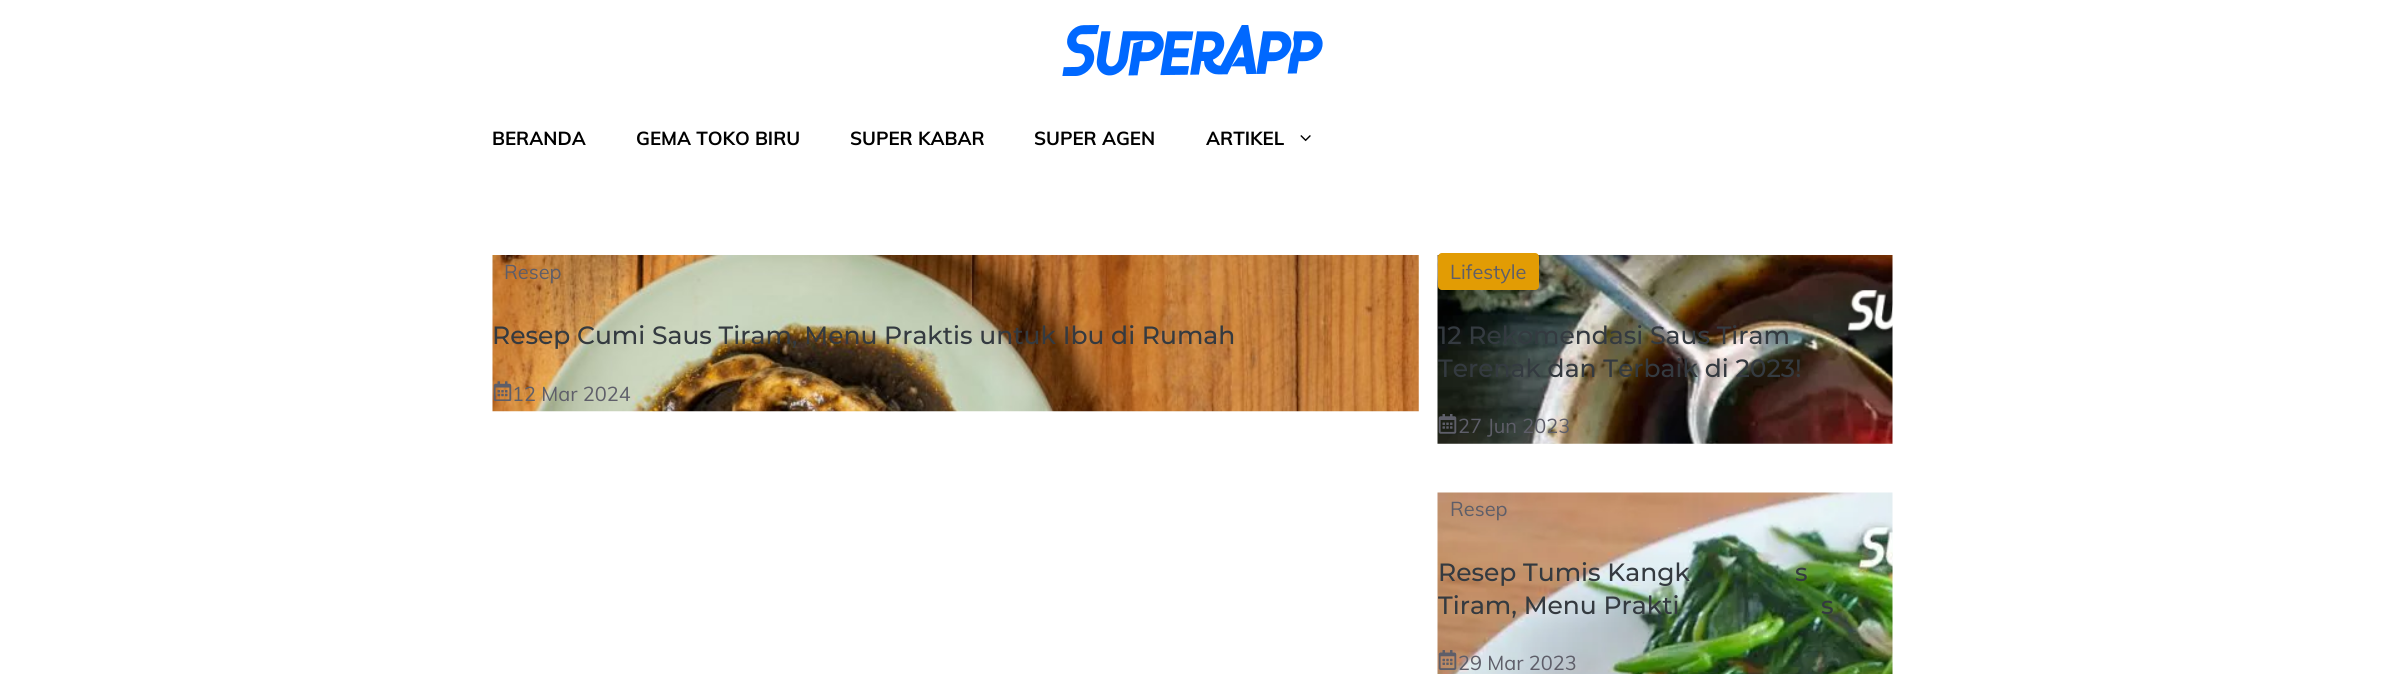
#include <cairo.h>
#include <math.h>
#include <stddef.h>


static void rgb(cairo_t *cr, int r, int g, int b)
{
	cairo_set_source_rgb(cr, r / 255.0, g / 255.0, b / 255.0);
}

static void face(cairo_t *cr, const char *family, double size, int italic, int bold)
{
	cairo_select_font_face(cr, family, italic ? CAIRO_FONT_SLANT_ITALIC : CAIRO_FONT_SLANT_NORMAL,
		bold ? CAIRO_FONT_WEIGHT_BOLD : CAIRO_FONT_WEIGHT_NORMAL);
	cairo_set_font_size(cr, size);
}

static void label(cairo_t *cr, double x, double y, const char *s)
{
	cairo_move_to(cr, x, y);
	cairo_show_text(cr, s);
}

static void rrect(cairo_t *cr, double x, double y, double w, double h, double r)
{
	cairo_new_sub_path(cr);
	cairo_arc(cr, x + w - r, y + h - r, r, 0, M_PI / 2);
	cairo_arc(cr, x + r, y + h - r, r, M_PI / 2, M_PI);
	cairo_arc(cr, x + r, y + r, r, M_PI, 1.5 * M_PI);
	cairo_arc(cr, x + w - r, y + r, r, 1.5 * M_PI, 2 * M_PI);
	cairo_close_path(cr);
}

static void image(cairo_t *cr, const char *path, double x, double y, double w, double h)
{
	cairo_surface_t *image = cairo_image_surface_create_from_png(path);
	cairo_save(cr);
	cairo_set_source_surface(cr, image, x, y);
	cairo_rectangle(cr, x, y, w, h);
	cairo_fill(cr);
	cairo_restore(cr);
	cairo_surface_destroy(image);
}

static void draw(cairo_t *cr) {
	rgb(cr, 255, 255, 255);
	cairo_paint(cr);
	image(cr, "image0.png", 1062, 25, 261, 51);
	face(cr, "Muli", 18.75, 0, 1);
	rgb(cr, 0, 0, 0);
	label(cr, 492, 145, "BERANDA");
	label(cr, 636, 145, "GEMA TOKO BIRU");
	label(cr, 850, 145, "SUPER KABAR");
	label(cr, 1034, 145, "SUPER AGEN");
	label(cr, 1206, 145, "ARTIKEL");
	image(cr, "image1.png", 1300, 135, 11, 7);
	image(cr, "image2.png", 492, 255, 927, 157);
	face(cr, "Muli", 20, 0, 0);
	rgb(cr, 94, 94, 105);
	label(cr, 504, 279, "Resep");
	face(cr, "Montserrat Medium", 25, 0, 0);
	rgb(cr, 52, 58, 64);
	label(cr, 492, 344, "Resep Cumi Saus Tiram, Menu Praktis untuk Ibu di Rumah");
	image(cr, "image3.png", 493, 381, 19, 20);
	face(cr, "Muli", 20, 0, 0);
	rgb(cr, 94, 94, 105);
	label(cr, 512, 401, "12 Mar 2024");
	image(cr, "image4.png", 1437, 255, 456, 189);
	rgb(cr, 226, 156, 4);
	rrect(cr, 1438, 253, 101, 37, 4);
	cairo_fill(cr);
	rgb(cr, 94, 94, 105);
	label(cr, 1450, 279, "Lifestyle");
	face(cr, "Montserrat Medium", 25, 0, 0);
	rgb(cr, 52, 58, 64);
	label(cr, 1438, 344, "12 Rekomendasi Saus Tiram");
	label(cr, 1438, 377, "Terenak dan Terbaik di 2023!");
	image(cr, "image5.png", 1438, 414, 19, 20);
	face(cr, "Muli", 20, 0, 0);
	rgb(cr, 94, 94, 105);
	label(cr, 1458, 433, "27 Jun 2023");
	image(cr, "image6.png", 1437, 492, 456, 182);
	label(cr, 1450, 516, "Resep");
	face(cr, "Montserrat Medium", 25, 0, 0);
	rgb(cr, 52, 58, 64);
	label(cr, 1438, 581, "Resep Tumis Kangk");
	label(cr, 1795, 581, "s");
	label(cr, 1438, 614, "Tiram, Menu Prakti");
	label(cr, 1821, 614, "s");
	image(cr, "image7.png", 1438, 650, 19, 20);
	face(cr, "Muli", 20, 0, 0);
	rgb(cr, 94, 94, 105);
	label(cr, 1458, 670, "29 Mar 2023");
}

int main(void) {
	cairo_surface_t *surface = cairo_image_surface_create(CAIRO_FORMAT_RGB24, 2383, 674);
	cairo_t *cr = cairo_create(surface);
	cairo_font_options_t *options = cairo_font_options_create();
	cairo_font_options_set_hint_metrics(options, CAIRO_HINT_METRICS_OFF);
	cairo_font_options_set_hint_style(options, CAIRO_HINT_STYLE_NONE);
	cairo_set_font_options(cr, options);
	cairo_set_miter_limit(cr, 4);
	draw(cr);
	cairo_surface_write_to_png(surface, "render.png");
	cairo_font_options_destroy(options);
	cairo_destroy(cr);
	cairo_surface_destroy(surface);
	return 0;
}
